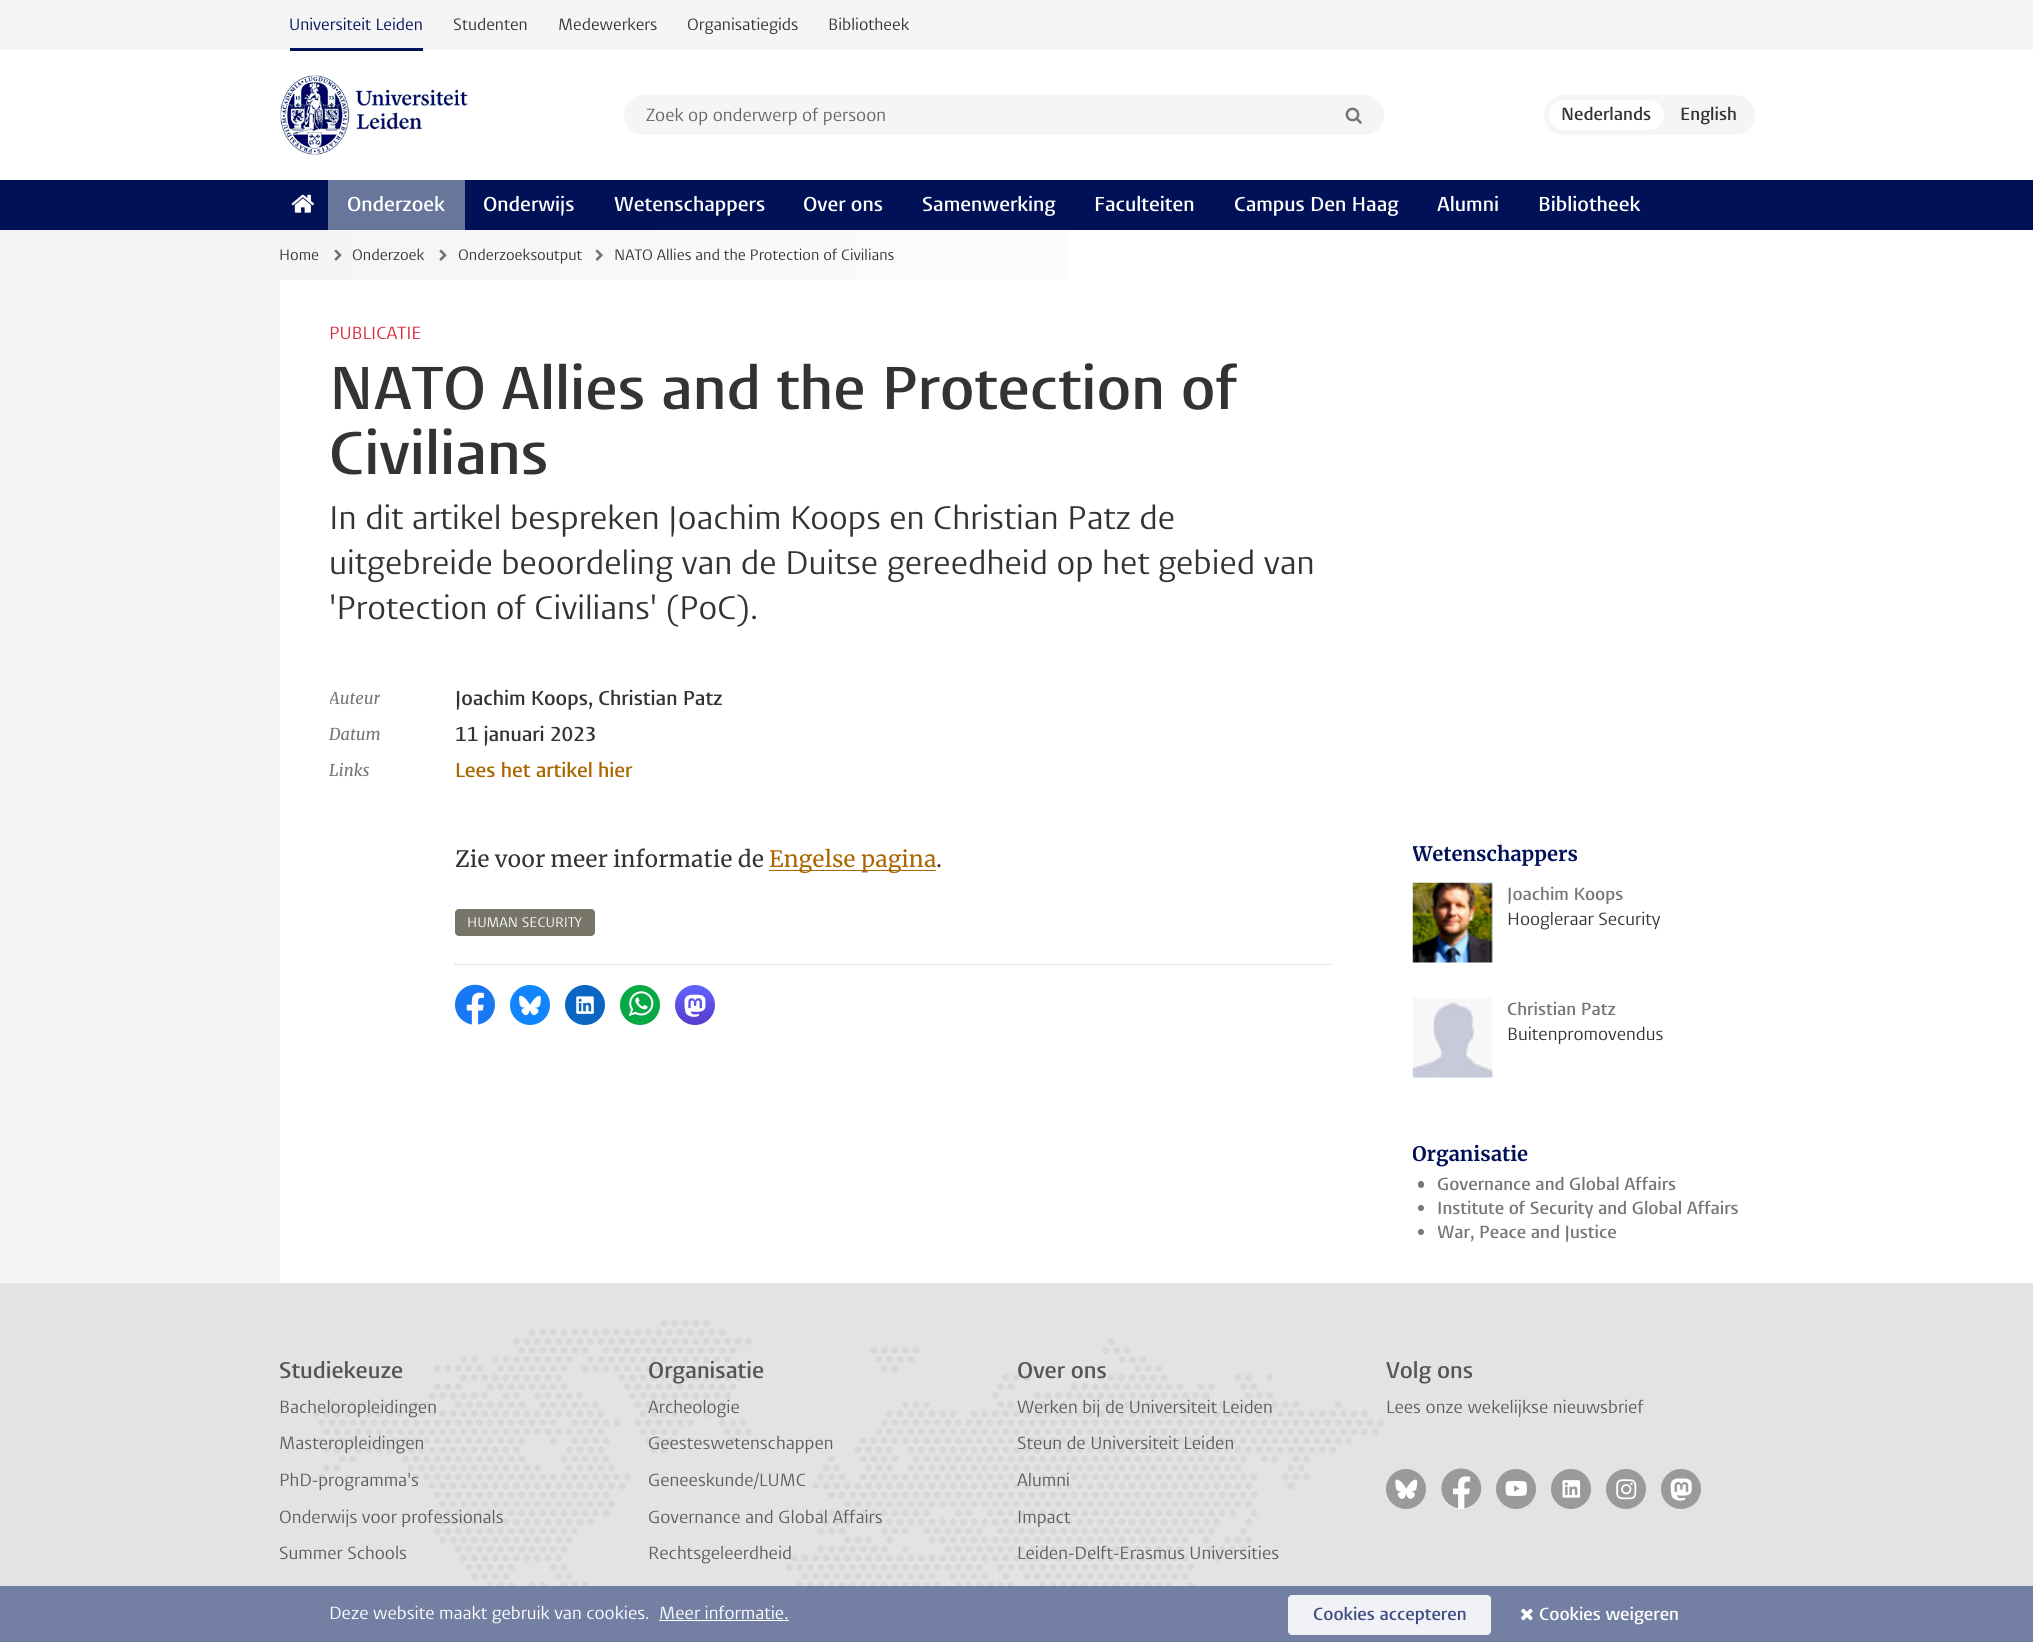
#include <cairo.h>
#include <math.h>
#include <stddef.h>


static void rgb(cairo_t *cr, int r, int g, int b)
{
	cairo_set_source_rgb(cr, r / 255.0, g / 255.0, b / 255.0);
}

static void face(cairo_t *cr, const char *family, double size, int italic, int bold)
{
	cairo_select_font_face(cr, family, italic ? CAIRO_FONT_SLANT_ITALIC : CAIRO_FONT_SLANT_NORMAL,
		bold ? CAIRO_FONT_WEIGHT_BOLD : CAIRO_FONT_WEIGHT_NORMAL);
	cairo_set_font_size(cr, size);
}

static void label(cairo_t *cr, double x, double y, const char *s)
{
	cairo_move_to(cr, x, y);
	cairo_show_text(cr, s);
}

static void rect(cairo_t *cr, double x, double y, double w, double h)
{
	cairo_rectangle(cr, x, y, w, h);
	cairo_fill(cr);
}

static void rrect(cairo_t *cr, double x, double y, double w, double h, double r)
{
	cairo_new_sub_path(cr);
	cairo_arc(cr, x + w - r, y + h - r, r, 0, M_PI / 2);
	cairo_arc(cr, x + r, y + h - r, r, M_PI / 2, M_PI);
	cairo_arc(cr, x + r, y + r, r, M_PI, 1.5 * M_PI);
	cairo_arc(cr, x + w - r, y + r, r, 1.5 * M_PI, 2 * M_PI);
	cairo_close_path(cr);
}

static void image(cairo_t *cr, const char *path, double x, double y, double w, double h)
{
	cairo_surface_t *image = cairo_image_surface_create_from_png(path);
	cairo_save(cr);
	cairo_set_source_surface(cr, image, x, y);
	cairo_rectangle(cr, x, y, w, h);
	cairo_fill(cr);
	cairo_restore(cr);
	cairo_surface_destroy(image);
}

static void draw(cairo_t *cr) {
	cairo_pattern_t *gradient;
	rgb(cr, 255, 255, 255);
	cairo_paint(cr);
	gradient = cairo_pattern_create_linear(0, 908, 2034, 908);
	cairo_pattern_add_color_stop_rgba(gradient, 0, 0.961, 0.961, 0.961, 1);
	cairo_pattern_add_color_stop_rgba(gradient, 0.15, 0.961, 0.961, 0.961, 1);
	cairo_pattern_add_color_stop_rgba(gradient, 0.65, 1, 1, 1, 1);
	cairo_set_source(cr, gradient);
	cairo_pattern_destroy(gradient);
	rect(cr, 0, 230, 1068, 1053);
	rgb(cr, 245, 245, 245);
	rect(cr, 0, 0, 2033, 50);
	face(cr, "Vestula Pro", 16.25, 0, 0);
	rgb(cr, 0, 17, 88);
	label(cr, 289, 30, "Universiteit Leiden");
	rect(cr, 290, 48, 133, 3);
	rgb(cr, 51, 51, 51);
	label(cr, 453, 30, "Studenten");
	label(cr, 558, 30, "Medewerkers");
	label(cr, 687, 30, "Organisatiegids");
	label(cr, 828, 30, "Bibliotheek");
	image(cr, "image0.png", 280, 75, 188, 80);
	rgb(cr, 245, 245, 245);
	cairo_new_path(cr);
	cairo_move_to(cr, 643.5, 98);
	cairo_line_to(cr, 1324, 98);
	cairo_line_to(cr, 1324, 133);
	cairo_line_to(cr, 643.5, 133);
	cairo_curve_to(cr, 634, 133, 626, 125, 626, 115.5);
	cairo_curve_to(cr, 626, 106, 634, 98, 643.5, 98);
	cairo_close_path(cr);
	cairo_fill(cr);
	cairo_set_fill_rule(cr, CAIRO_FILL_RULE_EVEN_ODD);
	cairo_new_path(cr);
	cairo_move_to(cr, 644, 95);
	cairo_line_to(cr, 1324, 95);
	cairo_line_to(cr, 1324, 135);
	cairo_line_to(cr, 644, 135);
	cairo_curve_to(cr, 617, 135, 618, 95, 644, 95);
	cairo_close_path(cr);
	cairo_move_to(cr, 644, 98);
	cairo_line_to(cr, 1324, 98);
	cairo_line_to(cr, 1324, 132);
	cairo_line_to(cr, 644, 132);
	cairo_curve_to(cr, 634, 132, 626, 125, 626, 115);
	cairo_curve_to(cr, 626, 105, 634, 98, 644, 98);
	cairo_close_path(cr);
	cairo_fill(cr);
	face(cr, "Vestula Pro", 17.5, 0, 0);
	rgb(cr, 101, 101, 101);
	label(cr, 646, 121, "Zoek op onderwerp of persoon");
	rgb(cr, 245, 245, 245);
	cairo_new_path(cr);
	cairo_move_to(cr, 1324, 95);
	cairo_line_to(cr, 1364, 95);
	cairo_curve_to(cr, 1375, 95, 1384, 104, 1384, 115);
	cairo_curve_to(cr, 1384, 126, 1375, 135, 1364, 135);
	cairo_line_to(cr, 1324, 135);
	cairo_close_path(cr);
	cairo_fill(cr);
	image(cr, "image1.png", 1345, 107, 17, 17);
	rrect(cr, 1544, 95, 211, 40, 20);
	cairo_fill(cr);
	rgb(cr, 255, 255, 255);
	rrect(cr, 1549, 100, 115, 30, 15);
	cairo_fill(cr);
	face(cr, "Vestula Pro SemiBold", 17.5, 0, 0);
	rgb(cr, 51, 51, 51);
	label(cr, 1561, 120, "Nederlands");
	label(cr, 1680, 120, "English");
	rgb(cr, 0, 17, 88);
	rect(cr, 0, 180, 2033, 50);
	image(cr, "image2.png", 291, 194, 24, 19);
	rgb(cr, 104, 118, 156);
	rect(cr, 328, 180, 137, 50);
	face(cr, "Vestula Pro SemiBold", 20, 0, 0);
	rgb(cr, 255, 255, 255);
	label(cr, 347, 211, "Onderzoek");
	label(cr, 483, 211, "Onderwijs");
	label(cr, 614, 211, "Wetenschappers");
	label(cr, 803, 211, "Over ons");
	label(cr, 922, 211, "Samenwerking");
	label(cr, 1094, 211, "Faculteiten");
	label(cr, 1234, 211, "Campus Den Haag");
	label(cr, 1437, 211, "Alumni");
	label(cr, 1538, 211, "Bibliotheek");
	face(cr, "Vestula Pro", 15, 0, 0);
	rgb(cr, 51, 51, 51);
	label(cr, 279, 260, "Home");
	image(cr, "image3.png", 334, 249, 8, 12);
	label(cr, 352, 260, "Onderzoek");
	image(cr, "image4.png", 439, 249, 8, 12);
	label(cr, 458, 260, "Onderzoeksoutput");
	image(cr, "image5.png", 595, 249, 8, 12);
	label(cr, 614, 260, "NATO Allies and the Protection of Civilians");
	rgb(cr, 255, 255, 255);
	rect(cr, 280, 280, 788, 1003);
	face(cr, "Vestula Pro", 17.5, 0, 0);
	rgb(cr, 213, 42, 59);
	label(cr, 329, 339, "PUBLICATIE");
	face(cr, "Vestula Pro SemiBold", 60, 0, 0);
	rgb(cr, 51, 51, 51);
	label(cr, 329, 409, "NATO Allies and the Protection of");
	label(cr, 329, 474, "Civilians");
	face(cr, "Vestula Pro", 32.5, 0, 0);
	label(cr, 329, 529, "In dit artikel bespreken Joachim Koops en Christian Patz de");
	label(cr, 329, 574, "uitgebreide beoordeling van de Duitse gereedheid op het gebied van");
	label(cr, 329, 619, "'Protection of Civilians' (PoC).");
	cairo_save(cr);
	cairo_set_fill_rule(cr, CAIRO_FILL_RULE_WINDING);
	cairo_rectangle(cr, 330, 661, 1003, 129);
	cairo_clip(cr);
	face(cr, "Merriweather", 16.25, 1, 0);
	rgb(cr, 118, 118, 118);
	label(cr, 329, 704, "Auteur");
	cairo_restore(cr);
	face(cr, "Vestula Pro SemiBold", 20, 0, 0);
	label(cr, 455, 705, "Joachim Koops, Christian Patz");
	face(cr, "Merriweather", 16.25, 1, 0);
	rgb(cr, 118, 118, 118);
	label(cr, 329, 740, "Datum");
	face(cr, "Vestula Pro SemiBold", 20, 0, 0);
	rgb(cr, 51, 51, 51);
	label(cr, 455, 741, "11 januari 2023");
	face(cr, "Merriweather", 16.25, 1, 0);
	rgb(cr, 118, 118, 118);
	label(cr, 329, 776, "Links");
	face(cr, "Vestula Pro SemiBold", 20, 0, 0);
	rgb(cr, 170, 102, 0);
	label(cr, 455, 777, "Lees het artikel hier");
	face(cr, "Merriweather", 22.5, 0, 0);
	rgb(cr, 51, 51, 51);
	label(cr, 455, 867, "Zie voor meer informatie de");
	rgb(cr, 170, 102, 0);
	rect(cr, 769, 870, 167, 1);
	label(cr, 769, 867, "Engelse pagina");
	rgb(cr, 51, 51, 51);
	label(cr, 936, 867, ".");
	rgb(cr, 118, 117, 103);
	rrect(cr, 455, 909, 140, 27, 4);
	cairo_fill(cr);
	face(cr, "Vestula Pro", 13.75, 0, 0);
	rgb(cr, 255, 255, 255);
	label(cr, 467, 927, "HUMAN SECURITY");
	cairo_new_path(cr);
	cairo_move_to(cr, 455, 964.5);
	cairo_line_to(cr, 1332.5, 964.5);
	rgb(cr, 204, 204, 204);
	cairo_set_line_width(cr, 1.2);
	cairo_set_dash(cr, (double[]){1.25, 1.25}, 2, 0);
	cairo_stroke(cr);
	image(cr, "image6.png", 455, 984, 40, 41);
	rgb(cr, 17, 133, 254);
	cairo_arc(cr, 530, 1005, 20, 0, 2 * M_PI);
	cairo_fill(cr);
	image(cr, "image7.png", 519, 995, 22, 21);
	rgb(cr, 10, 102, 194);
	cairo_arc(cr, 585, 1005, 20, 0, 2 * M_PI);
	cairo_fill(cr);
	image(cr, "image8.png", 576, 996, 18, 18);
	rgb(cr, 7, 169, 68);
	cairo_arc(cr, 640, 1005, 20, 0, 2 * M_PI);
	cairo_fill(cr);
	image(cr, "image9.png", 628, 991, 26, 25);
	gradient = cairo_pattern_create_linear(695, 985, 695, 1025);
	cairo_pattern_add_color_stop_rgba(gradient, 0, 0.388, 0.392, 1, 1);
	cairo_pattern_add_color_stop_rgba(gradient, 1, 0.337, 0.227, 0.8, 1);
	cairo_set_source(cr, gradient);
	cairo_pattern_destroy(gradient);
	cairo_arc(cr, 695, 1005, 20, 0, 2 * M_PI);
	cairo_fill(cr);
	image(cr, "image10.png", 684, 994, 22, 23);
	cairo_save(cr);
	cairo_set_fill_rule(cr, CAIRO_FILL_RULE_WINDING);
	cairo_rectangle(cr, 1413, 840, 342, 263);
	cairo_clip(cr);
	face(cr, "Merriweather", 20, 0, 1);
	rgb(cr, 0, 17, 88);
	label(cr, 1412, 861, "Wetenschappers");
	cairo_restore(cr);
	image(cr, "image11.png", 1412, 882, 81, 81);
	face(cr, "Vestula Pro SemiBold", 17.5, 0, 0);
	rgb(cr, 118, 118, 118);
	label(cr, 1507, 900, "Joachim Koops");
	face(cr, "Vestula Pro", 17.5, 0, 0);
	rgb(cr, 51, 51, 51);
	label(cr, 1507, 925, "Hoogleraar Security");
	image(cr, "image12.png", 1412, 998, 81, 80);
	face(cr, "Vestula Pro SemiBold", 17.5, 0, 0);
	rgb(cr, 118, 118, 118);
	label(cr, 1507, 1015, "Christian Patz");
	face(cr, "Vestula Pro", 17.5, 0, 0);
	rgb(cr, 51, 51, 51);
	label(cr, 1507, 1040, "Buitenpromovendus");
	cairo_save(cr);
	cairo_set_fill_rule(cr, CAIRO_FILL_RULE_WINDING);
	cairo_rectangle(cr, 1413, 1140, 342, 105);
	cairo_clip(cr);
	face(cr, "Merriweather", 20, 0, 1);
	rgb(cr, 0, 17, 88);
	label(cr, 1412, 1161, "Organisatie");
	cairo_restore(cr);
	rgb(cr, 118, 118, 118);
	rrect(cr, 1418, 1181, 6, 7, 3);
	cairo_fill(cr);
	cairo_save(cr);
	cairo_set_fill_rule(cr, CAIRO_FILL_RULE_WINDING);
	cairo_rectangle(cr, 1438, 1173, 317, 23);
	cairo_clip(cr);
	face(cr, "Vestula Pro SemiBold", 17.5, 0, 0);
	label(cr, 1437, 1190, "Governance and Global Affairs");
	cairo_restore(cr);
	cairo_new_path(cr);
	cairo_arc(cr, 1421, 1208, 3, 0, 2 * M_PI);
	cairo_fill(cr);
	face(cr, "Vestula Pro SemiBold", 17.5, 0, 0);
	label(cr, 1437, 1214, "Institute of Security and Global Affairs");
	cairo_new_path(cr);
	cairo_arc(cr, 1421, 1232, 3, 0, 2 * M_PI);
	cairo_fill(cr);
	cairo_save(cr);
	cairo_set_fill_rule(cr, CAIRO_FILL_RULE_WINDING);
	cairo_rectangle(cr, 1438, 1220, 317, 25);
	cairo_clip(cr);
	label(cr, 1437, 1238, "War, Peace and Justice");
	cairo_restore(cr);
	rgb(cr, 227, 227, 227);
	rect(cr, 0, 1283, 2033, 359);
	image(cr, "image13.png", 312, 1320, 1072, 322);
	face(cr, "Vestula Pro SemiBold", 22.5, 0, 0);
	rgb(cr, 85, 85, 85);
	label(cr, 279, 1378, "Studiekeuze");
	face(cr, "Vestula Pro", 17.5, 0, 0);
	rgb(cr, 94, 94, 94);
	label(cr, 279, 1413, "Bacheloropleidingen");
	label(cr, 279, 1449, "Masteropleidingen");
	label(cr, 279, 1486, "PhD-programma's");
	label(cr, 279, 1523, "Onderwijs voor professionals");
	label(cr, 279, 1559, "Summer Schools");
	face(cr, "Vestula Pro SemiBold", 22.5, 0, 0);
	rgb(cr, 85, 85, 85);
	label(cr, 648, 1378, "Organisatie");
	face(cr, "Vestula Pro", 17.5, 0, 0);
	rgb(cr, 94, 94, 94);
	label(cr, 648, 1413, "Archeologie");
	label(cr, 648, 1449, "Geesteswetenschappen");
	label(cr, 648, 1486, "Geneeskunde/LUMC");
	label(cr, 648, 1523, "Governance and Global Affairs");
	label(cr, 648, 1559, "Rechtsgeleerdheid");
	face(cr, "Vestula Pro SemiBold", 22.5, 0, 0);
	rgb(cr, 85, 85, 85);
	label(cr, 1017, 1378, "Over ons");
	face(cr, "Vestula Pro", 17.5, 0, 0);
	rgb(cr, 94, 94, 94);
	label(cr, 1017, 1413, "Werken bij de Universiteit Leiden");
	label(cr, 1017, 1449, "Steun de Universiteit Leiden");
	label(cr, 1017, 1486, "Alumni");
	label(cr, 1017, 1523, "Impact");
	label(cr, 1017, 1559, "Leiden-Delft-Erasmus Universities");
	face(cr, "Vestula Pro SemiBold", 22.5, 0, 0);
	rgb(cr, 85, 85, 85);
	label(cr, 1386, 1378, "Volg ons");
	face(cr, "Vestula Pro", 17.5, 0, 0);
	rgb(cr, 94, 94, 94);
	label(cr, 1386, 1413, "Lees onze wekelijkse nieuwsbrief");
	rgb(cr, 154, 154, 154);
	cairo_new_path(cr);
	cairo_arc(cr, 1406, 1489, 20, 0, 2 * M_PI);
	cairo_fill(cr);
	image(cr, "image14.png", 1395, 1479, 23, 20);
	rgb(cr, 255, 255, 255);
	cairo_arc(cr, 1461, 1489, 20, 0, 2 * M_PI);
	cairo_fill(cr);
	image(cr, "image15.png", 1441, 1468, 41, 41);
	rgb(cr, 154, 154, 154);
	cairo_arc(cr, 1516, 1489, 20, 0, 2 * M_PI);
	cairo_fill(cr);
	image(cr, "image16.png", 1505, 1481, 22, 15);
	cairo_arc(cr, 1571, 1489, 20, 0, 2 * M_PI);
	cairo_fill(cr);
	image(cr, "image17.png", 1562, 1480, 19, 18);
	cairo_arc(cr, 1626, 1489, 20, 0, 2 * M_PI);
	cairo_fill(cr);
	image(cr, "image18.png", 1616, 1479, 21, 21);
	cairo_arc(cr, 1681, 1489, 20, 0, 2 * M_PI);
	cairo_fill(cr);
	image(cr, "image19.png", 1670, 1478, 22, 23);
	cairo_set_source_rgba(cr, 0.408, 0.463, 0.612, 0.9);
	rect(cr, 0, 1586, 2033, 56);
	rgb(cr, 255, 255, 255);
	label(cr, 329, 1619, "Deze website maakt gebruik van cookies.");
	label(cr, 659, 1619, "Meer informatie.");
	rect(cr, 659, 1620, 130, 1);
	rgb(cr, 241, 242, 246);
	rrect(cr, 1288, 1595, 203, 40, 4);
	cairo_fill(cr);
	face(cr, "Vestula Pro SemiBold", 17.5, 0, 0);
	rgb(cr, 64, 77, 130);
	label(cr, 1313, 1620, "Cookies accepteren");
	image(cr, "image20.png", 1521, 1608, 12, 13);
	rgb(cr, 255, 255, 255);
	label(cr, 1539, 1620, "Cookies weigeren");
}

int main(void) {
	cairo_surface_t *surface = cairo_image_surface_create(CAIRO_FORMAT_RGB24, 2033, 1642);
	cairo_t *cr = cairo_create(surface);
	cairo_font_options_t *options = cairo_font_options_create();
	cairo_font_options_set_hint_metrics(options, CAIRO_HINT_METRICS_OFF);
	cairo_font_options_set_hint_style(options, CAIRO_HINT_STYLE_NONE);
	cairo_set_font_options(cr, options);
	cairo_set_miter_limit(cr, 4);
	draw(cr);
	cairo_surface_write_to_png(surface, "render.png");
	cairo_font_options_destroy(options);
	cairo_destroy(cr);
	cairo_surface_destroy(surface);
	return 0;
}
